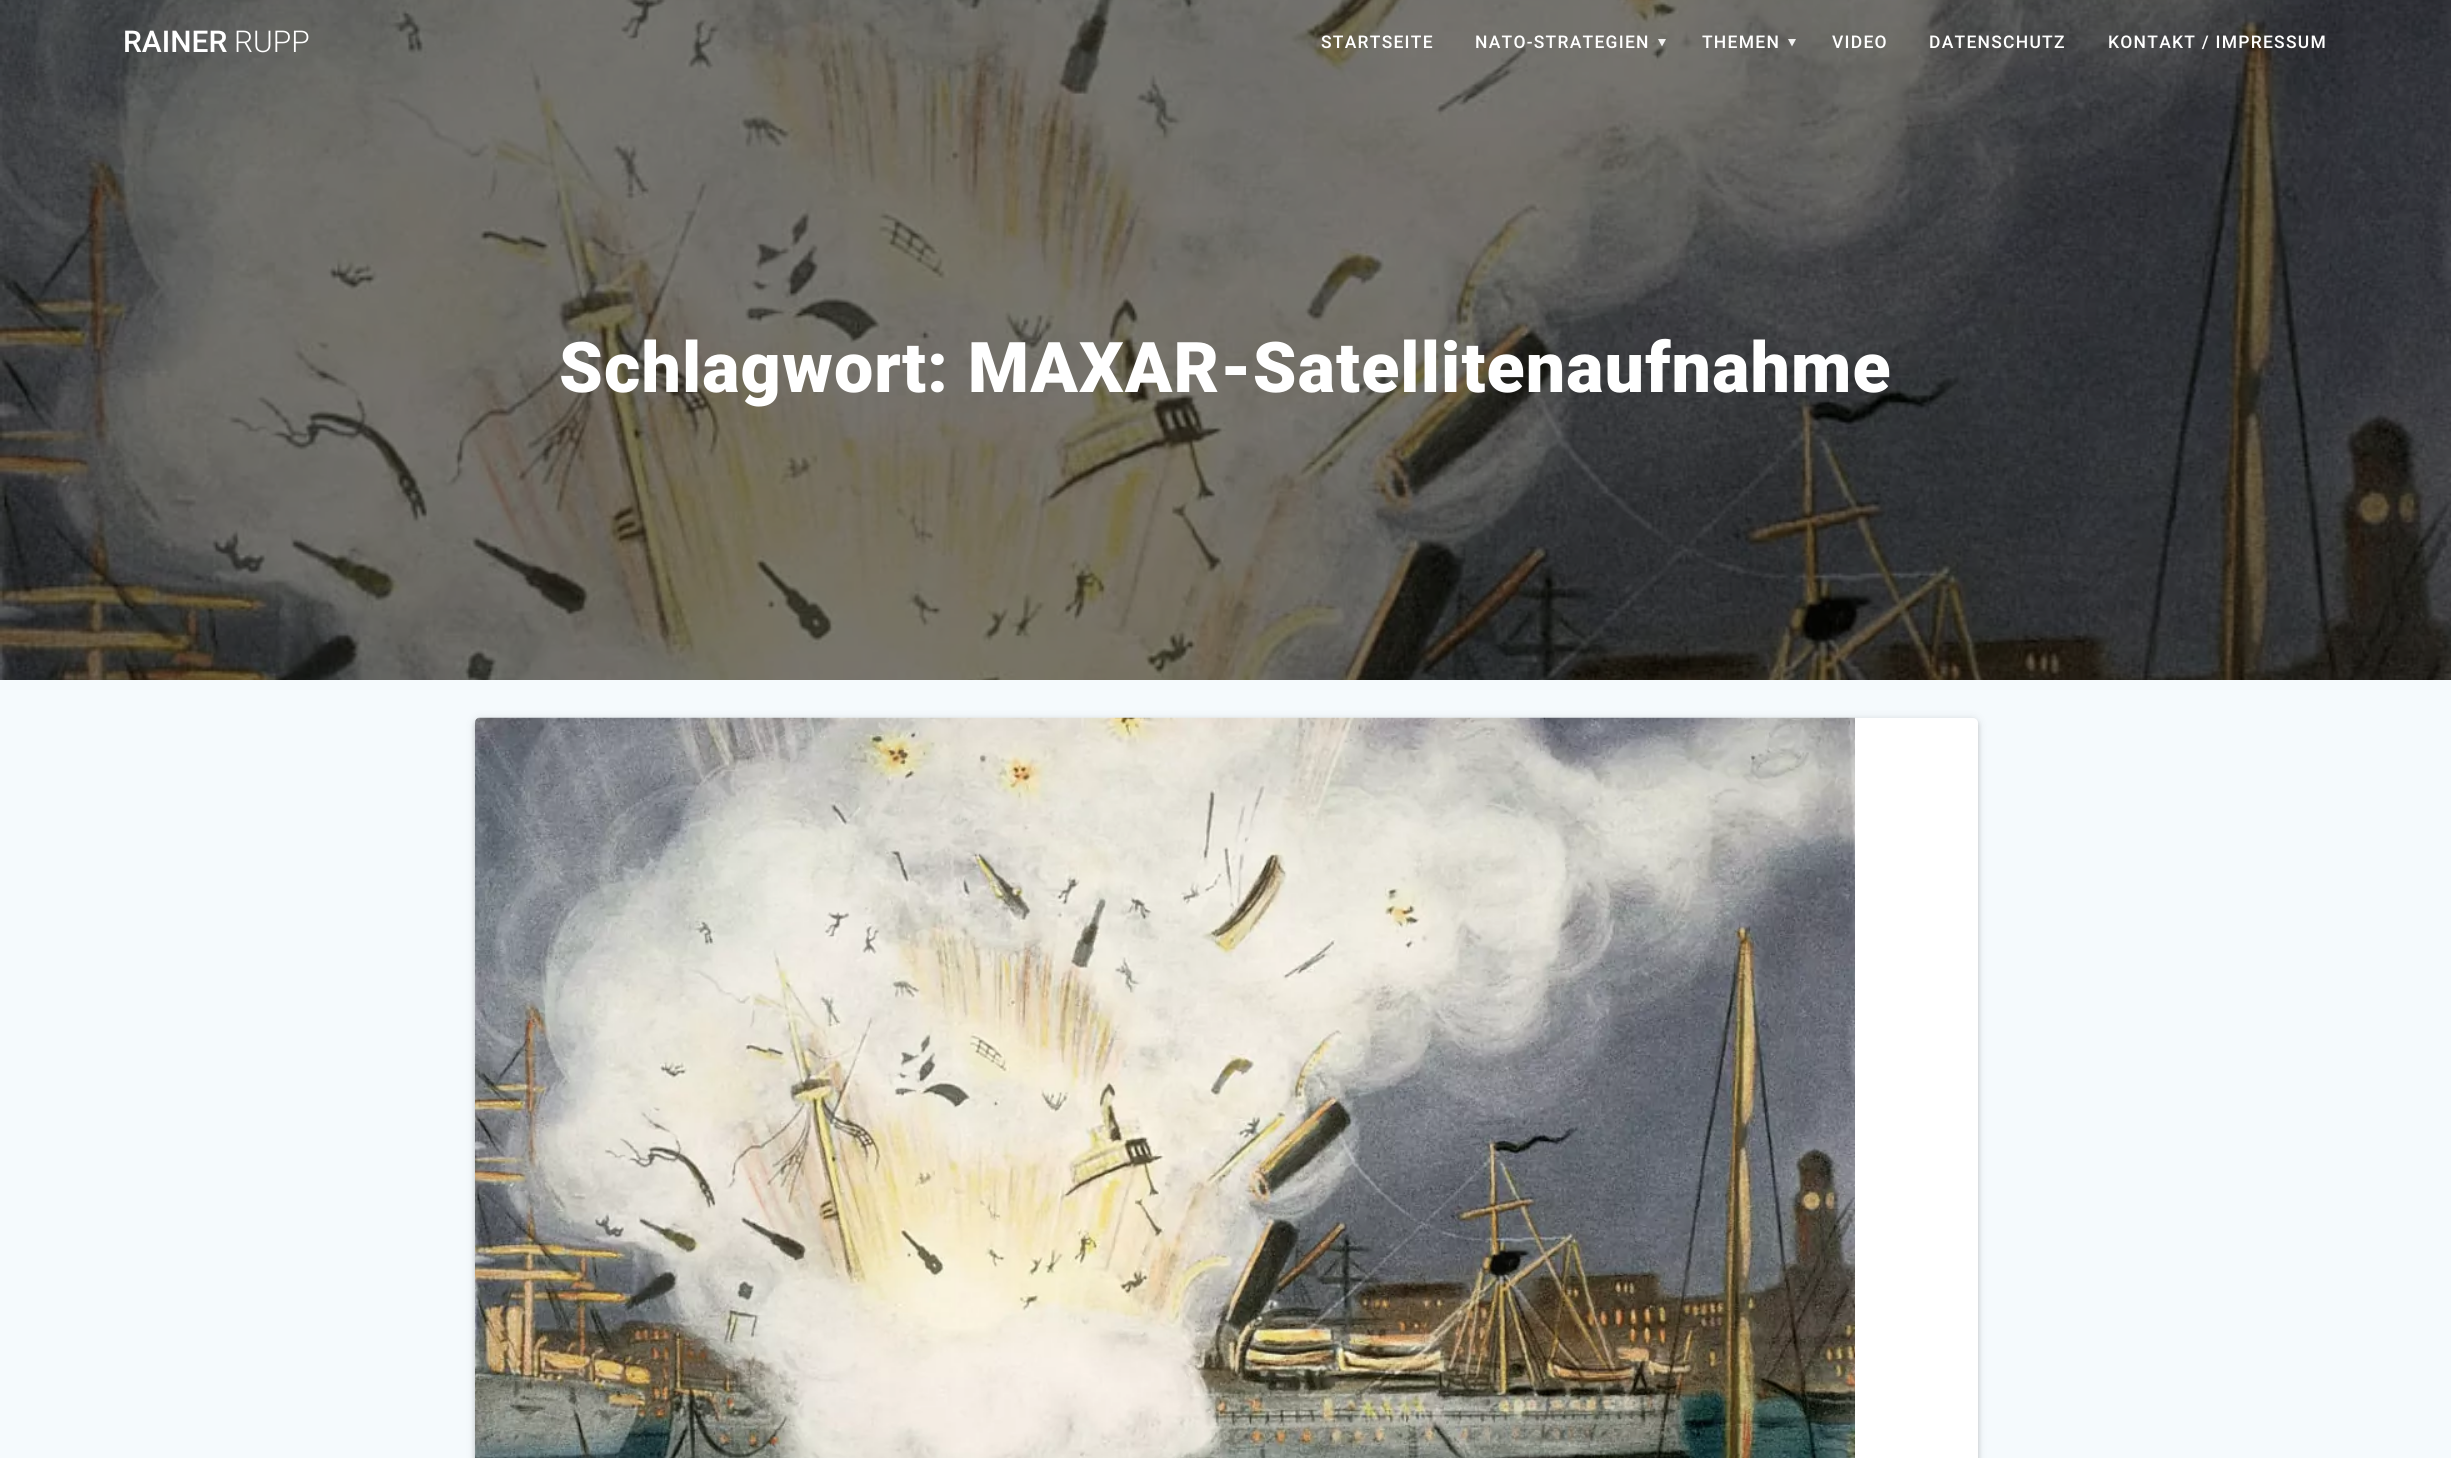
#include <cairo.h>
#include <math.h>
#include <stddef.h>


static void rgb(cairo_t *cr, int r, int g, int b)
{
	cairo_set_source_rgb(cr, r / 255.0, g / 255.0, b / 255.0);
}

static void face(cairo_t *cr, const char *family, double size, int italic, int bold)
{
	cairo_select_font_face(cr, family, italic ? CAIRO_FONT_SLANT_ITALIC : CAIRO_FONT_SLANT_NORMAL,
		bold ? CAIRO_FONT_WEIGHT_BOLD : CAIRO_FONT_WEIGHT_NORMAL);
	cairo_set_font_size(cr, size);
}

static void label(cairo_t *cr, double x, double y, const char *s)
{
	cairo_move_to(cr, x, y);
	cairo_show_text(cr, s);
}

static void tracked(cairo_t *cr, double x, double y, const char *s, double letter, double word)
{
	cairo_move_to(cr, x, y);
	while (*s) {
		char ch[5] = {0};
		int n = 0;
		do ch[n++] = *s++; while ((*s & 0xC0) == 0x80);
		cairo_show_text(cr, ch);
		cairo_rel_move_to(cr, letter + word * (*ch == ' '), 0);
	}
}

static void rect(cairo_t *cr, double x, double y, double w, double h)
{
	cairo_rectangle(cr, x, y, w, h);
	cairo_fill(cr);
}

static void rrect(cairo_t *cr, double x, double y, double w, double h, double r)
{
	cairo_new_sub_path(cr);
	cairo_arc(cr, x + w - r, y + h - r, r, 0, M_PI / 2);
	cairo_arc(cr, x + r, y + h - r, r, M_PI / 2, M_PI);
	cairo_arc(cr, x + r, y + r, r, M_PI, 1.5 * M_PI);
	cairo_arc(cr, x + w - r, y + r, r, 1.5 * M_PI, 2 * M_PI);
	cairo_close_path(cr);
}

static void soft_shadow(cairo_t *cr, double x, double y, double w, double h, double r, double blur, double alpha)
{
	cairo_push_group_with_content(cr, CAIRO_CONTENT_ALPHA);
	cairo_set_operator(cr, CAIRO_OPERATOR_SOURCE);
	for (int i = 15; i >= -15 && fmin(w, h) + blur * i / 3 > 0; i -= 2) {
		double e = blur * i / 6;
		cairo_set_source_rgba(cr, 0, 0, 0, alpha * erfc((i - 1) / 8.5) / 2);
		rrect(cr, x - e, y - e, w + 2 * e, h + 2 * e, fmax(0, fmin(r + e + blur * .6, fmin(w, h) / 2 + e)));
		cairo_fill(cr);
	}
	cairo_pattern_t *soft = cairo_pop_group(cr);
	cairo_mask(cr, soft);
	cairo_pattern_destroy(soft);
}

static void image(cairo_t *cr, const char *path, double x, double y, double w, double h)
{
	cairo_surface_t *image = cairo_image_surface_create_from_png(path);
	cairo_save(cr);
	cairo_set_source_surface(cr, image, x, y);
	cairo_rectangle(cr, x, y, w, h);
	cairo_fill(cr);
	cairo_restore(cr);
	cairo_surface_destroy(image);
}

static void draw(cairo_t *cr) {
	rgb(cr, 255, 255, 255);
	cairo_paint(cr);
	image(cr, "image0.png", 0, 0, 2451, 680);
	face(cr, "Roboto Medium", 30, 0, 0);
	rgb(cr, 255, 255, 255);
	label(cr, 123, 52, "RAINER");
	face(cr, "Roboto Light", 30, 0, 0);
	label(cr, 234, 52, "RUPP");
	face(cr, "Roboto Medium", 17.5, 0, 0);
	tracked(cr, 1321, 48, "STARTSEITE", 1.25, 0);
	tracked(cr, 1475, 48, "NATO-STRATEGIEN", 1.25, 0);
	cairo_set_source_rgba(cr, 1, 1, 1, 0.9);
	cairo_new_path(cr);
	cairo_move_to(cr, 1658, 39);
	cairo_line_to(cr, 1662, 46.5);
	cairo_line_to(cr, 1666, 39);
	cairo_close_path(cr);
	cairo_fill(cr);
	rgb(cr, 255, 255, 255);
	tracked(cr, 1702, 48, "THEMEN", 1.25, 0);
	cairo_set_source_rgba(cr, 1, 1, 1, 0.9);
	cairo_new_path(cr);
	cairo_move_to(cr, 1788, 39);
	cairo_line_to(cr, 1792, 46.5);
	cairo_line_to(cr, 1796, 39);
	cairo_close_path(cr);
	cairo_fill(cr);
	rgb(cr, 255, 255, 255);
	tracked(cr, 1832, 48, "VIDEO", 1.25, 0);
	tracked(cr, 1929, 48, "DATENSCHUTZ", 1.25, 0);
	tracked(cr, 2108, 48, "KONTAKT / IMPRESSUM", 1.25, 0);
	face(cr, "Roboto Black", 70, 0, 0);
	tracked(cr, 559, 392, "Schlagwort: MAXAR-Satellitenaufnahme", 1.1, 0);
	rgb(cr, 245, 250, 253);
	rect(cr, 0, 680, 2451, 778);
	rgb(cr, 0, 0, 0);
	soft_shadow(cr, 475, 719, 1503, 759, 5, 5, 0.12);
	soft_shadow(cr, 475, 721, 1503, 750, 5, 2.5, 0.14);
	rgb(cr, 255, 255, 255);
	rrect(cr, 475, 718, 1503, 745, 5);
	cairo_fill(cr);
	image(cr, "image1.png", 475, 717, 1380, 741);
}

int main(void) {
	cairo_surface_t *surface = cairo_image_surface_create(CAIRO_FORMAT_RGB24, 2451, 1458);
	cairo_t *cr = cairo_create(surface);
	cairo_font_options_t *options = cairo_font_options_create();
	cairo_font_options_set_hint_metrics(options, CAIRO_HINT_METRICS_OFF);
	cairo_font_options_set_hint_style(options, CAIRO_HINT_STYLE_NONE);
	cairo_set_font_options(cr, options);
	cairo_set_miter_limit(cr, 4);
	draw(cr);
	cairo_surface_write_to_png(surface, "render.png");
	cairo_font_options_destroy(options);
	cairo_destroy(cr);
	cairo_surface_destroy(surface);
	return 0;
}
